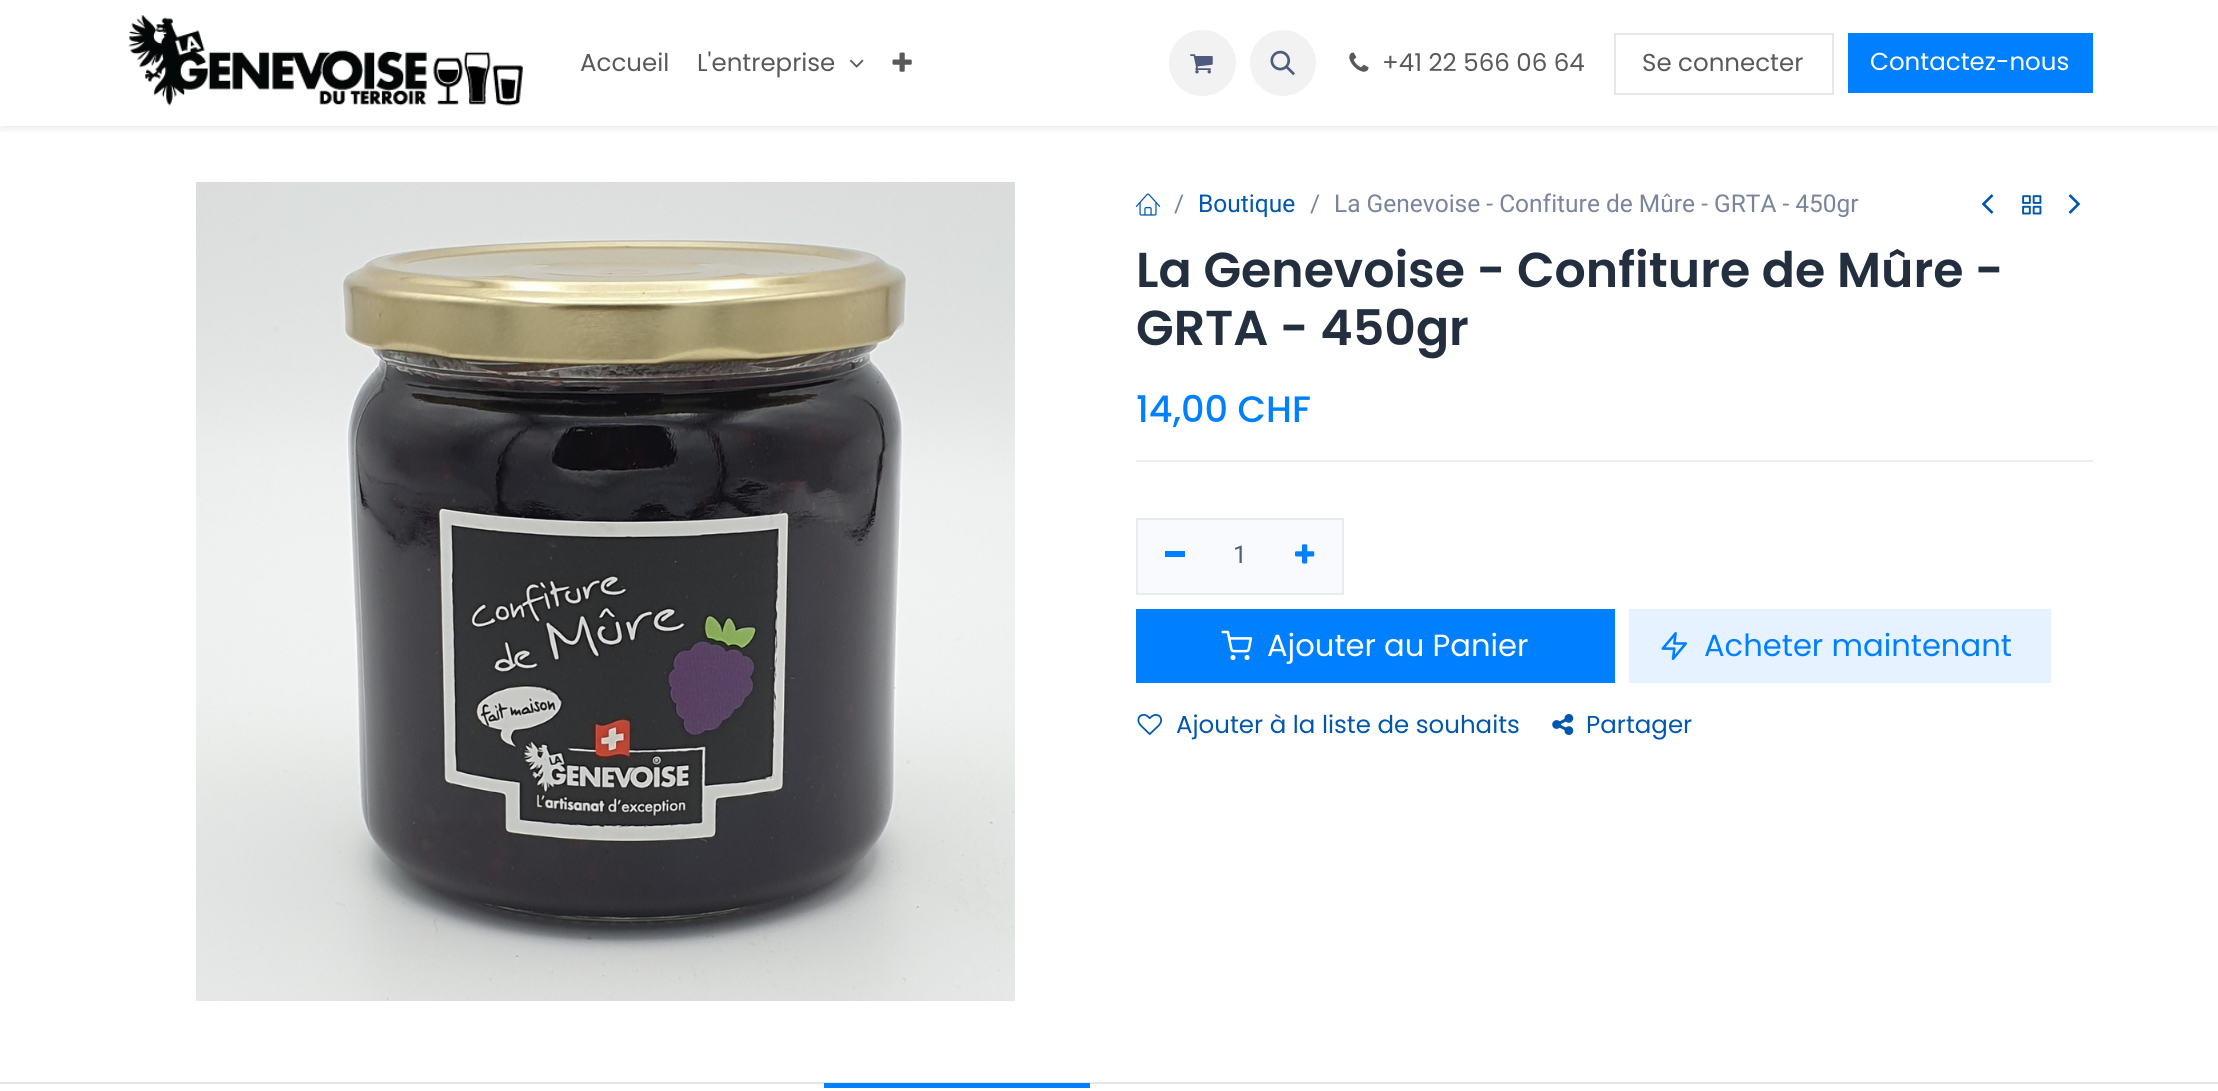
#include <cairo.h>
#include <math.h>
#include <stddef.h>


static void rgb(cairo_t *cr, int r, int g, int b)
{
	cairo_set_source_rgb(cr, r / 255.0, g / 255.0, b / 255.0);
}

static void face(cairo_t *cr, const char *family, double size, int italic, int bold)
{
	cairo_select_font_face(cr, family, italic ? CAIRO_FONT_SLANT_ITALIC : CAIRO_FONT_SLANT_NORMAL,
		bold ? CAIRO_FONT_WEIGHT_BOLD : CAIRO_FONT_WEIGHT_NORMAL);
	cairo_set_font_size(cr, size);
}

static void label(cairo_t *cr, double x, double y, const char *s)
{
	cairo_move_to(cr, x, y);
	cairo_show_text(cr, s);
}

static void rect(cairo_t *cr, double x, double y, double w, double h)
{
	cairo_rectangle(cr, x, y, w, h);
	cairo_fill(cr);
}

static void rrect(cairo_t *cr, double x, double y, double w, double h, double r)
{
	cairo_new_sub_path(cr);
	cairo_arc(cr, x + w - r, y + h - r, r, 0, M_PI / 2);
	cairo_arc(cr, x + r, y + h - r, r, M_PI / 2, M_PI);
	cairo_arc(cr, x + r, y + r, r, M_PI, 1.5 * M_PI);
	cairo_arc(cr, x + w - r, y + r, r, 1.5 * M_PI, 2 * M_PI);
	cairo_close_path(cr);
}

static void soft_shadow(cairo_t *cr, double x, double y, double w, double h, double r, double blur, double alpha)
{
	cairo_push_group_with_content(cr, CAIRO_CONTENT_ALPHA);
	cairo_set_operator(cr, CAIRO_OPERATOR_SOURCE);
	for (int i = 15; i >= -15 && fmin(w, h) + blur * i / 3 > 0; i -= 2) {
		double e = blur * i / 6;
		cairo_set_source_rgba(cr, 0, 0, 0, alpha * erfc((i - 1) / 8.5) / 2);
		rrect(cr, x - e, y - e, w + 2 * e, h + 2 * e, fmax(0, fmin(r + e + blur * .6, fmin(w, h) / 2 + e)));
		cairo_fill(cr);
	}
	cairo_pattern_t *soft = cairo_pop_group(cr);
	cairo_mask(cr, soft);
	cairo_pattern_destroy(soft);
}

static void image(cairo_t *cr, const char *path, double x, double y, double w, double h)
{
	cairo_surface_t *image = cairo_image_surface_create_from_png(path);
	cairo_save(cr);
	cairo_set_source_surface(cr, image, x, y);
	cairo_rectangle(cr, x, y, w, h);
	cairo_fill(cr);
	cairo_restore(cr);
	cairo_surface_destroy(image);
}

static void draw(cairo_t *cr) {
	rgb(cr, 255, 255, 255);
	cairo_paint(cr);
	cairo_save(cr);
	cairo_rectangle(cr, 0, 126, 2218, 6);
	cairo_clip(cr);
	rgb(cr, 0, 0, 0);
	soft_shadow(cr, 0, 4, 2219, 126, 0, 3.5, 0.07);
	cairo_restore(cr);
	image(cr, "image0.png", 128, 15, 395, 91);
	face(cr, "Poppins", 24.5, 0, 0);
	rgb(cr, 89, 89, 89);
	label(cr, 580, 71, "Accueil");
	label(cr, 697, 71, "L'entreprise");
	image(cr, "image1.png", 849, 59, 15, 9);
	image(cr, "image2.png", 892, 52, 20, 20);
	rgb(cr, 242, 242, 242);
	rrect(cr, 1169, 30, 67, 66, 33);
	cairo_fill(cr);
	image(cr, "image3.png", 1190, 54, 23, 20);
	cairo_arc(cr, 1283, 63, 33, 0, 2 * M_PI);
	cairo_fill(cr);
	image(cr, "image4.png", 1270, 50, 25, 26);
	image(cr, "image5.png", 1349, 52, 20, 20);
	rgb(cr, 89, 89, 89);
	label(cr, 1382, 71, "+41 22 566 06 64");
	cairo_rectangle(cr, 1615, 34, 218, 60);
	rgb(cr, 230, 230, 230);
	cairo_stroke(cr);
	rgb(cr, 89, 89, 89);
	label(cr, 1642, 71, "Se connecter");
	rgb(cr, 0, 128, 255);
	rect(cr, 1848, 33, 245, 60);
	rgb(cr, 255, 255, 255);
	label(cr, 1870, 70, "Contactez-nous");
	image(cr, "image6.png", 196, 182, 819, 819);
	image(cr, "image7.png", 1135, 193, 26, 23);
	face(cr, "Roboto", 24.5, 0, 0);
	rgb(cr, 122, 132, 157);
	label(cr, 1174, 212, "/");
	rgb(cr, 0, 87, 173);
	label(cr, 1198, 212, "Boutique");
	rgb(cr, 122, 132, 157);
	label(cr, 1310, 212, "/");
	label(cr, 1334, 212, "La Genevoise - Confiture de Mûre - GRTA - 450gr");
	image(cr, "image8.png", 1982, 194, 12, 20);
	image(cr, "image9.png", 2022, 195, 20, 20);
	image(cr, "image10.png", 2068, 194, 12, 20);
	face(cr, "Poppins SemiBold", 49, 0, 0);
	rgb(cr, 35, 47, 62);
	label(cr, 1136, 287, "La Genevoise - Confiture de Mûre -");
	label(cr, 1136, 345, "GRTA - 450gr");
	face(cr, "Poppins Medium", 36.75, 0, 0);
	rgb(cr, 0, 128, 255);
	label(cr, 1136, 422, "14,00 CHF");
	rgb(cr, 238, 239, 242);
	rect(cr, 1136, 460, 957, 2);
	rgb(cr, 249, 250, 254);
	cairo_rectangle(cr, 1137, 519, 206, 75);
	cairo_fill_preserve(cr);
	rgb(cr, 233, 236, 239);
	cairo_stroke(cr);
	rgb(cr, 0, 128, 255);
	rect(cr, 1165, 551, 20, 6);
	face(cr, "Roboto", 24.5, 0, 0);
	rgb(cr, 77, 91, 124);
	label(cr, 1233, 563, "1");
	image(cr, "image11.png", 1295, 544, 20, 20);
	rgb(cr, 0, 128, 255);
	rect(cr, 1136, 609, 479, 74);
	image(cr, "image12.png", 1221, 630, 32, 30);
	face(cr, "Poppins", 30.6, 0, 0);
	rgb(cr, 255, 255, 255);
	label(cr, 1267, 656, "Ajouter au Panier");
	rgb(cr, 230, 242, 255);
	rect(cr, 1629, 609, 422, 74);
	image(cr, "image13.png", 1661, 632, 27, 28);
	rgb(cr, 0, 128, 255);
	label(cr, 1704, 656, "Acheter maintenant");
	image(cr, "image14.png", 1137, 714, 25, 21);
	face(cr, "Poppins", 24.5, 0, 0);
	rgb(cr, 0, 87, 173);
	label(cr, 1176, 733, "Ajouter à la liste de souhaits");
	image(cr, "image15.png", 1552, 714, 22, 21);
	label(cr, 1586, 733, "Partager");
	rgb(cr, 228, 230, 235);
	rect(cr, 0, 1082, 2218, 2);
	rgb(cr, 0, 128, 255);
	rect(cr, 824, 1083, 266, 5);
}

int main(void) {
	cairo_surface_t *surface = cairo_image_surface_create(CAIRO_FORMAT_RGB24, 2218, 1091);
	cairo_t *cr = cairo_create(surface);
	cairo_font_options_t *options = cairo_font_options_create();
	cairo_font_options_set_hint_metrics(options, CAIRO_HINT_METRICS_OFF);
	cairo_font_options_set_hint_style(options, CAIRO_HINT_STYLE_NONE);
	cairo_set_font_options(cr, options);
	cairo_set_miter_limit(cr, 4);
	draw(cr);
	cairo_surface_write_to_png(surface, "render.png");
	cairo_font_options_destroy(options);
	cairo_destroy(cr);
	cairo_surface_destroy(surface);
	return 0;
}
